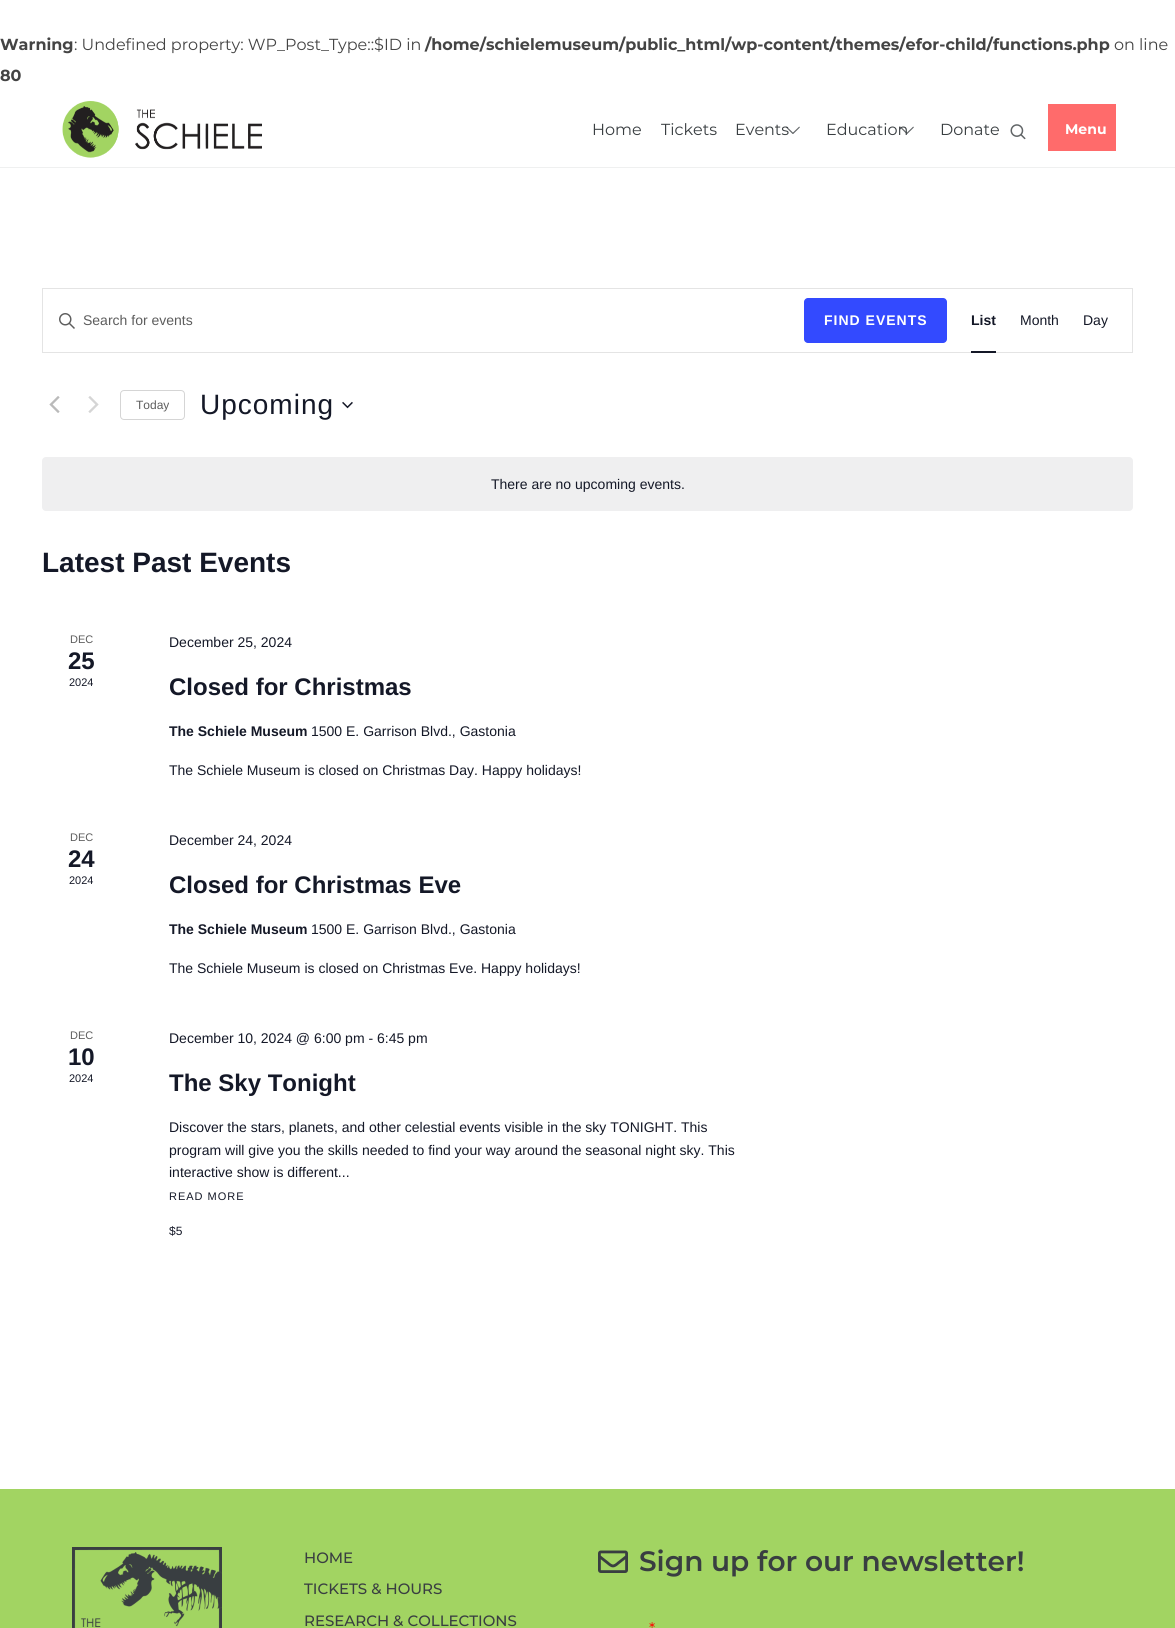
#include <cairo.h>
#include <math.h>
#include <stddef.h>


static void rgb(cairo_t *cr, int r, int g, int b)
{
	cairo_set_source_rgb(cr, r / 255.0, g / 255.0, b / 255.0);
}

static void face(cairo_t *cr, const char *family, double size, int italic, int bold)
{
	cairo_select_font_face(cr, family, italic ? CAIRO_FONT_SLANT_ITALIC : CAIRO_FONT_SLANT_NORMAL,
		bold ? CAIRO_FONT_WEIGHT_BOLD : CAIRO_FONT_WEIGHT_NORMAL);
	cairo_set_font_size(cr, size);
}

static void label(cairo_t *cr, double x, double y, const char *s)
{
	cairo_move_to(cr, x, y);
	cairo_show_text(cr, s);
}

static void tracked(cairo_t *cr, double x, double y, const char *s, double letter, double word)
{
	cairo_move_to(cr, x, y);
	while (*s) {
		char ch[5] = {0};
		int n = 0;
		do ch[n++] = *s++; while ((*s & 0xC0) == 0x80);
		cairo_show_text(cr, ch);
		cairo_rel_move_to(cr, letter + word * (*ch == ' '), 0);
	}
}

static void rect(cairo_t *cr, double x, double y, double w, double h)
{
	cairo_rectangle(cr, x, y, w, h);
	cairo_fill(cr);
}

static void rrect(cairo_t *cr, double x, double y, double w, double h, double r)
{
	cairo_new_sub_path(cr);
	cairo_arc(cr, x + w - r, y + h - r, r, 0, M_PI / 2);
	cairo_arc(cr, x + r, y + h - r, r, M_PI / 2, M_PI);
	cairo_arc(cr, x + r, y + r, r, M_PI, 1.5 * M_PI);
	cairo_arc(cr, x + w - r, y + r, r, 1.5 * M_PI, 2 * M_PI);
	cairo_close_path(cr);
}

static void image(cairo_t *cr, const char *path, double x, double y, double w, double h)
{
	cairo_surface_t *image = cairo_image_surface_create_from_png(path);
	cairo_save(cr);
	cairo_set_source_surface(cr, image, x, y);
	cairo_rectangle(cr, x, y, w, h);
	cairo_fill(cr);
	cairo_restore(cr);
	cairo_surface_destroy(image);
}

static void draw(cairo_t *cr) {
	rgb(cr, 255, 255, 255);
	cairo_paint(cr);
	face(cr, "Montserrat", 16, 0, 1);
	rgb(cr, 68, 68, 68);
	label(cr, 0, 50, "Warning");
	face(cr, "Montserrat", 16, 0, 0);
	label(cr, 74, 50, ": Undefined property: WP_Post_Type::$ID in");
	face(cr, "Montserrat", 16, 0, 1);
	label(cr, 425, 50, "/home/schielemuseum/public_html/wp-content/themes/efor-child/functions.php");
	face(cr, "Montserrat", 16, 0, 0);
	label(cr, 1114, 50, "on line");
	face(cr, "Montserrat", 16, 0, 1);
	label(cr, 0, 81, "80");
	image(cr, "image0.png", 62, 101, 200, 57);
	face(cr, "Montserrat", 16, 0, 0);
	rgb(cr, 57, 62, 65);
	label(cr, 592, 135, "Home");
	label(cr, 661, 135, "Tickets");
	label(cr, 735, 135, "Events");
	image(cr, "image1.png", 786, 126, 14, 8);
	label(cr, 826, 135, "Education");
	image(cr, "image2.png", 900, 126, 14, 8);
	label(cr, 940, 135, "Donate");
	image(cr, "image3.png", 1010, 124, 16, 16);
	rgb(cr, 255, 107, 107);
	rect(cr, 1048, 104, 68, 47);
	face(cr, "Montserrat", 14, 0, 1);
	rgb(cr, 255, 255, 255);
	label(cr, 1065, 134, "Menu");
	rgb(cr, 239, 240, 240);
	rect(cr, 0, 167, 1175, 1);
	cairo_rectangle(cr, 42.5, 288.5, 1090, 64);
	rgb(cr, 228, 228, 228);
	cairo_set_line_width(cr, 1);
	cairo_stroke(cr);
	image(cr, "image4.png", 59, 313, 16, 16);
	face(cr, "Liberation Sans", 14, 0, 0);
	rgb(cr, 93, 93, 93);
	label(cr, 83, 325, "Search for events");
	rgb(cr, 51, 74, 255);
	rrect(cr, 804, 298, 143, 45, 4);
	cairo_fill(cr);
	face(cr, "Liberation Sans", 14, 0, 1);
	rgb(cr, 255, 255, 255);
	tracked(cr, 824, 325, "FIND EVENTS", 1, 0);
	rgb(cr, 20, 24, 39);
	label(cr, 971, 325, "List");
	rect(cr, 971, 351, 25, 2);
	face(cr, "Liberation Sans", 14, 0, 0);
	label(cr, 1020, 325, "Month");
	label(cr, 1083, 325, "Day");
	image(cr, "image5.png", 49, 396, 11, 17);
	image(cr, "image6.png", 88, 396, 11, 17);
	rrect(cr, 120.5, 390.5, 64, 29, 3.5);
	rgb(cr, 213, 213, 213);
	cairo_stroke(cr);
	face(cr, "Liberation Sans", 12, 0, 0);
	rgb(cr, 93, 93, 93);
	label(cr, 136, 409, "Today");
	face(cr, "Liberation Sans", 28, 0, 0);
	rgb(cr, 20, 24, 39);
	tracked(cr, 200, 414, "Upcoming", 1, 0);
	image(cr, "image7.png", 342, 401, 11, 8);
	rgb(cr, 239, 239, 240);
	rrect(cr, 42, 457, 1091, 54, 4);
	cairo_fill(cr);
	face(cr, "Liberation Sans", 14, 0, 0);
	rgb(cr, 20, 24, 39);
	label(cr, 491, 489, "There are no upcoming events.");
	face(cr, "Liberation Sans", 28, 0, 1);
	label(cr, 42, 572, "Latest Past Events");
	face(cr, "Liberation Sans", 11, 0, 0);
	rgb(cr, 93, 93, 93);
	label(cr, 70, 643, "DEC");
	face(cr, "Liberation Sans", 24, 0, 1);
	rgb(cr, 20, 24, 39);
	label(cr, 68, 669, "25");
	face(cr, "Liberation Sans", 11, 0, 0);
	label(cr, 69, 686, "2024");
	face(cr, "Liberation Sans", 14, 0, 0);
	label(cr, 169, 647, "December 25, 2024");
	face(cr, "Liberation Sans", 24, 0, 1);
	label(cr, 169, 695, "Closed for Christmas");
	face(cr, "Liberation Sans", 14, 0, 1);
	label(cr, 169, 736, "The Schiele Museum");
	face(cr, "Liberation Sans", 14, 0, 0);
	label(cr, 311, 736, "1500 E. Garrison Blvd., Gastonia");
	label(cr, 169, 775, "The Schiele Museum is closed on Christmas Day. Happy holidays!");
	face(cr, "Liberation Sans", 11, 0, 0);
	rgb(cr, 93, 93, 93);
	label(cr, 70, 841, "DEC");
	face(cr, "Liberation Sans", 24, 0, 1);
	rgb(cr, 20, 24, 39);
	label(cr, 68, 867, "24");
	face(cr, "Liberation Sans", 11, 0, 0);
	label(cr, 69, 884, "2024");
	face(cr, "Liberation Sans", 14, 0, 0);
	label(cr, 169, 845, "December 24, 2024");
	face(cr, "Liberation Sans", 24, 0, 1);
	label(cr, 169, 893, "Closed for Christmas Eve");
	face(cr, "Liberation Sans", 14, 0, 1);
	label(cr, 169, 934, "The Schiele Museum");
	face(cr, "Liberation Sans", 14, 0, 0);
	label(cr, 311, 934, "1500 E. Garrison Blvd., Gastonia");
	label(cr, 169, 973, "The Schiele Museum is closed on Christmas Eve. Happy holidays!");
	face(cr, "Liberation Sans", 11, 0, 0);
	rgb(cr, 93, 93, 93);
	label(cr, 70, 1039, "DEC");
	face(cr, "Liberation Sans", 24, 0, 1);
	rgb(cr, 20, 24, 39);
	label(cr, 68, 1065, "10");
	face(cr, "Liberation Sans", 11, 0, 0);
	label(cr, 69, 1082, "2024");
	face(cr, "Liberation Sans", 14, 0, 0);
	label(cr, 169, 1043, "December 10, 2024 @ 6:00 pm - 6:45 pm");
	face(cr, "Liberation Sans", 24, 0, 1);
	label(cr, 169, 1091, "The Sky Tonight");
	face(cr, "Liberation Sans", 14, 0, 0);
	label(cr, 169, 1132, "Discover the stars, planets, and other celestial events visible in the sky TONIGHT. This");
	label(cr, 169, 1155, "program will give you the skills needed to find your way around the seasonal night sky. This");
	label(cr, 169, 1177, "interactive show is different...");
	face(cr, "Liberation Sans", 11, 0, 0);
	tracked(cr, 169, 1200, "READ MORE", 1, 0);
	face(cr, "Liberation Sans", 12, 0, 0);
	label(cr, 169, 1235, "$5");
	rgb(cr, 162, 212, 98);
	rect(cr, 0, 1489, 1175, 139);
	image(cr, "image8.png", 72, 1547, 150, 81);
	face(cr, "Montserrat Medium", 15, 0, 0);
	rgb(cr, 57, 62, 65);
	label(cr, 304, 1563, "HOME");
	label(cr, 304, 1594, "TICKETS & HOURS");
	label(cr, 304, 1626, "RESEARCH & COLLECTIONS");
	image(cr, "image9.png", 598, 1550, 30, 23);
	face(cr, "Montserrat SemiBold", 28, 0, 0);
	label(cr, 639, 1571, "Sign up for our newsletter!");
	face(cr, "Montserrat", 16, 0, 0);
	rgb(cr, 255, 0, 0);
	label(cr, 649, 1634, "*");
}

int main(void) {
	cairo_surface_t *surface = cairo_image_surface_create(CAIRO_FORMAT_RGB24, 1175, 1628);
	cairo_t *cr = cairo_create(surface);
	cairo_font_options_t *options = cairo_font_options_create();
	cairo_font_options_set_hint_metrics(options, CAIRO_HINT_METRICS_OFF);
	cairo_font_options_set_hint_style(options, CAIRO_HINT_STYLE_NONE);
	cairo_set_font_options(cr, options);
	cairo_set_miter_limit(cr, 4);
	draw(cr);
	cairo_surface_write_to_png(surface, "render.png");
	cairo_font_options_destroy(options);
	cairo_destroy(cr);
	cairo_surface_destroy(surface);
	return 0;
}
